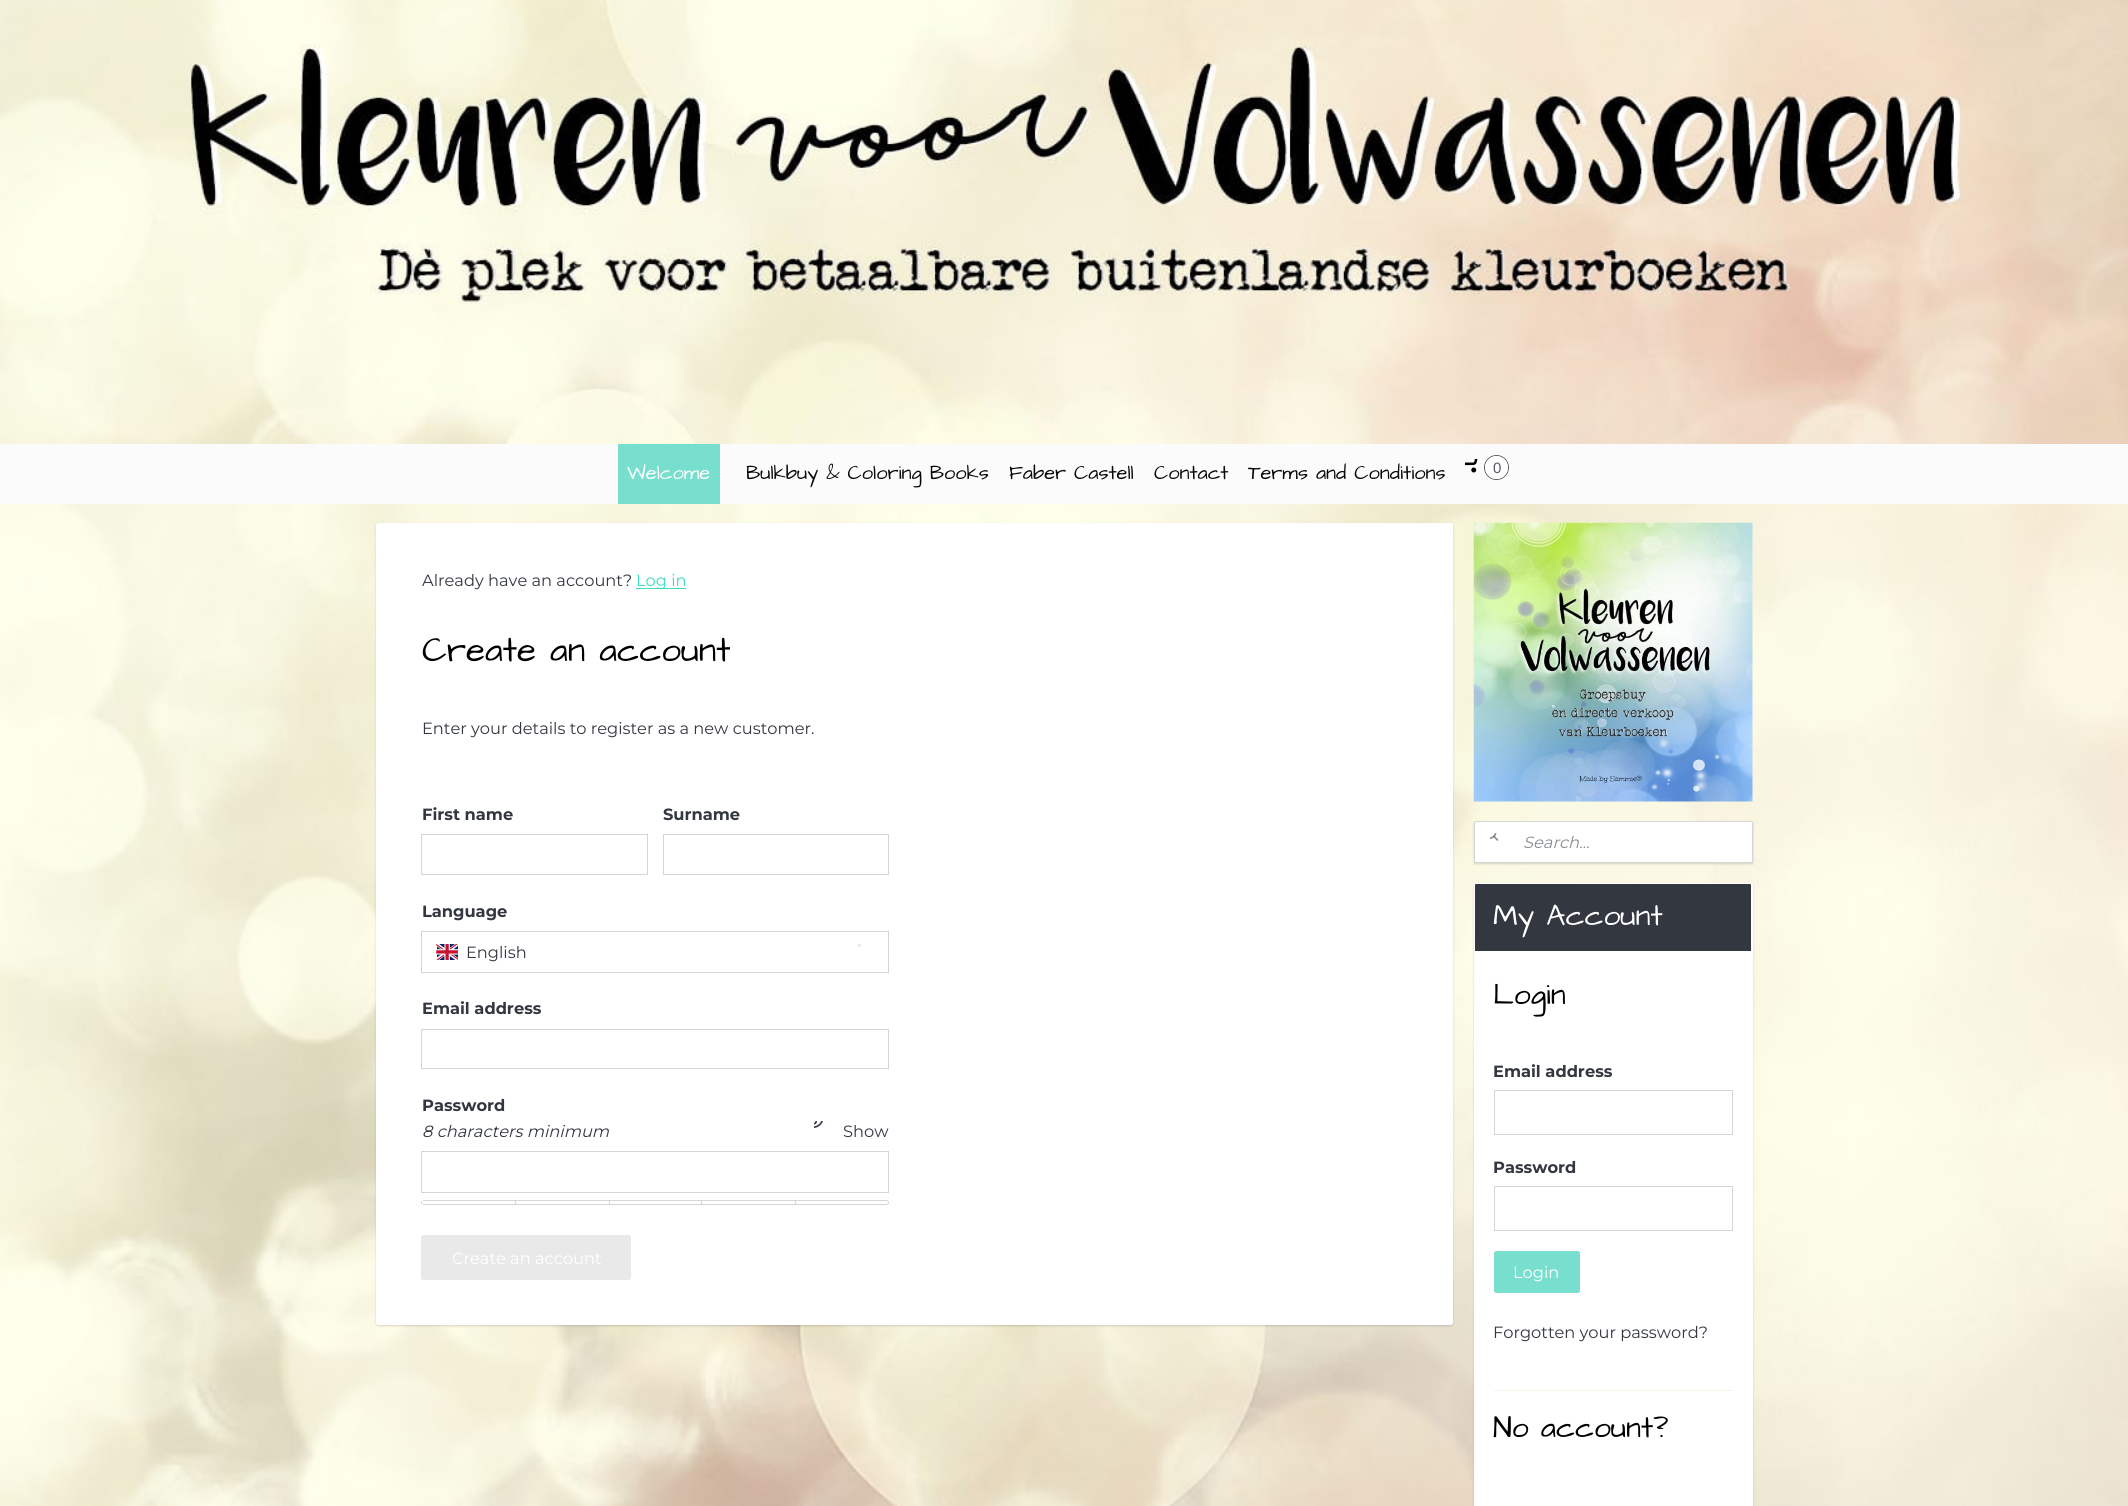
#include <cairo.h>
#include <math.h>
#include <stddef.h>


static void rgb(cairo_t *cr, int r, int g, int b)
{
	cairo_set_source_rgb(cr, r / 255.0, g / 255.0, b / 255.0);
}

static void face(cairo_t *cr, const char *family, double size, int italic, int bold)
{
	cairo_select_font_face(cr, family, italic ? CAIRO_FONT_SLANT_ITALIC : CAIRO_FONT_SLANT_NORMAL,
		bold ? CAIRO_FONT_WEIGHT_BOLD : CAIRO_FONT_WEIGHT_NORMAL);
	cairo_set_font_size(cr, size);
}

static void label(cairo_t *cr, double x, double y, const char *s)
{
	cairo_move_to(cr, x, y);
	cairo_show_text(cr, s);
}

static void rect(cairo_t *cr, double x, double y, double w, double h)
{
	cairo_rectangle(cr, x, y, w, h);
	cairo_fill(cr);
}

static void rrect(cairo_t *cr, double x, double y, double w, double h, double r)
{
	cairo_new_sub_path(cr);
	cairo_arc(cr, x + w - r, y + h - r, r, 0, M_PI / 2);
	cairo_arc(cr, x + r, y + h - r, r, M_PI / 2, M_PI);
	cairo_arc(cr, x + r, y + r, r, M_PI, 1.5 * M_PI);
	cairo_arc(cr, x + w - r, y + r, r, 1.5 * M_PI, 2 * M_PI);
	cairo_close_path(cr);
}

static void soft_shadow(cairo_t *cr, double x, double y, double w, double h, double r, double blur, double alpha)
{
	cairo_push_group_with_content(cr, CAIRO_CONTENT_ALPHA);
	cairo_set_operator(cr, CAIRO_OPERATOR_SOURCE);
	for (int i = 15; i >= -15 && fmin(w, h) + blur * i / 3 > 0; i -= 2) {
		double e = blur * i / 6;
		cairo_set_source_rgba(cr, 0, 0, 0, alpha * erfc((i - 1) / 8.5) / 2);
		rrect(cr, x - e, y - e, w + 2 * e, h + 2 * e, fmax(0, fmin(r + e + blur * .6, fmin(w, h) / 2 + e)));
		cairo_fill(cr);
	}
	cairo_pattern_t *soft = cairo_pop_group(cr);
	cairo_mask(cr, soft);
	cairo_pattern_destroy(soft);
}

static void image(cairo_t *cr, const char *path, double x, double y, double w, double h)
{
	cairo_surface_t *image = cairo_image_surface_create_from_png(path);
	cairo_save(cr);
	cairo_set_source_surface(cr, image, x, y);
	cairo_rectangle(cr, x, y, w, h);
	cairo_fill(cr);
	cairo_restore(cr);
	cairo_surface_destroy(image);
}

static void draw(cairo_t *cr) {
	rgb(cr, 255, 255, 255);
	cairo_paint(cr);
	image(cr, "image0.png", 0, 0, 2128, 444);
	rgb(cr, 251, 251, 251);
	rect(cr, 0, 444, 2128, 60);
	rgb(cr, 120, 222, 205);
	rect(cr, 618, 444, 102, 60);
	face(cr, "Architects Daughter", 20, 0, 0);
	rgb(cr, 255, 255, 255);
	label(cr, 627, 479, "Welcome");
	rgb(cr, 7, 7, 7);
	label(cr, 746, 479, "Bulkbuy & Coloring Books");
	label(cr, 1009, 479, "Faber Castell");
	label(cr, 1154, 479, "Contact");
	label(cr, 1248, 479, "Terms and Conditions");
	image(cr, "image1.png", 1465, 459, 13, 14);
	cairo_arc(cr, 1496.5, 467.5, 12, 0, 2 * M_PI);
	rgb(cr, 87, 91, 98);
	cairo_set_line_width(cr, 1);
	cairo_stroke(cr);
	rgb(cr, 255, 255, 255);
	cairo_arc(cr, 1496.5, 467.5, 11.5, 0, 2 * M_PI);
	cairo_fill(cr);
	face(cr, "Liberation Sans", 15, 0, 0);
	rgb(cr, 87, 91, 98);
	label(cr, 1493, 473, "0");
	image(cr, "image2.png", 0, 504, 2128, 1002);
	rgb(cr, 0, 0, 0);
	soft_shadow(cr, 376, 524, 1077, 802, 2.5, 1, 0.15);
	rgb(cr, 255, 255, 255);
	rrect(cr, 376, 523, 1077, 802, 2.5);
	cairo_fill(cr);
	face(cr, "Montserrat", 16.25, 0, 0);
	rgb(cr, 51, 55, 64);
	label(cr, 422, 586, "Already have an account?");
	rgb(cr, 59, 222, 195);
	rect(cr, 636, 588, 50, 1);
	label(cr, 636, 586, "Log in");
	face(cr, "Architects Daughter", 35, 0, 0);
	rgb(cr, 0, 0, 0);
	label(cr, 422, 661, "Create an account");
	face(cr, "Montserrat", 16.25, 0, 0);
	rgb(cr, 51, 55, 64);
	label(cr, 422, 734, "Enter your details to register as a new customer.");
	face(cr, "Montserrat", 16.25, 0, 1);
	label(cr, 422, 820, "First name");
	cairo_rectangle(cr, 421.5, 834.5, 226, 40);
	rgb(cr, 211, 213, 217);
	cairo_stroke(cr);
	rgb(cr, 51, 55, 64);
	label(cr, 663, 820, "Surname");
	cairo_rectangle(cr, 663.5, 834.5, 225, 40);
	rgb(cr, 211, 213, 217);
	cairo_stroke(cr);
	rgb(cr, 51, 55, 64);
	label(cr, 422, 917, "Language");
	cairo_rectangle(cr, 421.5, 931.5, 467, 41);
	rgb(cr, 211, 213, 217);
	cairo_stroke(cr);
	image(cr, "image3.png", 436, 944, 22, 16);
	face(cr, "Montserrat", 16.25, 0, 0);
	rgb(cr, 51, 55, 64);
	label(cr, 466, 958, "English");
	rgb(cr, 235, 235, 236);
	rect(cr, 858, 944, 3, 3);
	face(cr, "Montserrat", 16.25, 0, 1);
	rgb(cr, 51, 55, 64);
	label(cr, 422, 1014, "Email address");
	cairo_rectangle(cr, 421.5, 1029.5, 467, 39);
	rgb(cr, 211, 213, 217);
	cairo_stroke(cr);
	rgb(cr, 51, 55, 64);
	label(cr, 422, 1111, "Password");
	face(cr, "Montserrat", 16.25, 1, 0);
	label(cr, 422, 1137, "8 characters minimum");
	image(cr, "image4.png", 814, 1121, 9, 7);
	face(cr, "Montserrat", 16.25, 0, 0);
	label(cr, 843, 1137, "Show");
	cairo_rectangle(cr, 421.5, 1151.5, 467, 41);
	rgb(cr, 211, 213, 217);
	cairo_stroke(cr);
	rect(cr, 423, 1200, 372, 1);
	rect(cr, 423, 1204, 372, 1);
	rect(cr, 421, 1201, 1, 3);
	rect(cr, 515, 1200, 1, 5);
	rect(cr, 609, 1200, 1, 5);
	rect(cr, 701, 1200, 1, 5);
	cairo_new_path(cr);
	cairo_move_to(cr, 795.5, 1200.5);
	cairo_line_to(cr, 886.5, 1200.5);
	cairo_curve_to(cr, 887.5, 1200.5, 888.5, 1201.5, 888.5, 1202.5);
	cairo_curve_to(cr, 888.5, 1203.5, 887.5, 1204.5, 886.5, 1204.5);
	cairo_line_to(cr, 795.5, 1204.5);
	cairo_close_path(cr);
	cairo_stroke(cr);
	rgb(cr, 233, 233, 233);
	rrect(cr, 421, 1235, 210, 45, 2.5);
	cairo_fill(cr);
	rgb(cr, 255, 255, 255);
	label(cr, 452, 1264, "Create an account");
	image(cr, "image5.png", 1473, 522, 280, 280);
	rgb(cr, 0, 0, 0);
	soft_shadow(cr, 1474, 823, 279, 41, 0, 1, 0.15);
	rgb(cr, 255, 255, 255);
	rrect(cr, 1474.5, 821.5, 278, 41, 2);
	cairo_fill_preserve(cr);
	rgb(cr, 211, 213, 217);
	cairo_stroke(cr);
	image(cr, "image6.png", 1490, 833, 9, 8);
	face(cr, "Montserrat", 16.25, 1, 0);
	rgb(cr, 137, 140, 145);
	label(cr, 1523, 848, "Search...");
	rgb(cr, 0, 0, 0);
	soft_shadow(cr, 1474, 884, 279, 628, 2.5, 1, 0.15);
	rgb(cr, 255, 255, 255);
	rrect(cr, 1474, 883, 279, 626, 2.5);
	cairo_fill(cr);
	rgb(cr, 51, 55, 64);
	cairo_new_path(cr);
	cairo_move_to(cr, 1476, 884);
	cairo_line_to(cr, 1750, 884);
	cairo_curve_to(cr, 1750.5, 884, 1751, 884.5, 1751, 885);
	cairo_line_to(cr, 1751, 951);
	cairo_line_to(cr, 1475, 951);
	cairo_line_to(cr, 1475, 885);
	cairo_curve_to(cr, 1475, 884.5, 1475.5, 884, 1476, 884);
	cairo_close_path(cr);
	cairo_fill(cr);
	face(cr, "Architects Daughter", 30, 0, 0);
	rgb(cr, 255, 255, 255);
	label(cr, 1493, 925, "My Account");
	rgb(cr, 0, 0, 0);
	label(cr, 1493, 1004, "Login");
	face(cr, "Montserrat", 16.25, 0, 1);
	rgb(cr, 51, 55, 64);
	label(cr, 1493, 1077, "Email address");
	cairo_rectangle(cr, 1494.5, 1090.5, 238, 44);
	rgb(cr, 211, 213, 217);
	cairo_stroke(cr);
	rgb(cr, 51, 55, 64);
	label(cr, 1493, 1173, "Password");
	cairo_rectangle(cr, 1494.5, 1186.5, 238, 44);
	rgb(cr, 211, 213, 217);
	cairo_stroke(cr);
	rgb(cr, 120, 222, 205);
	rrect(cr, 1494, 1251, 86, 42, 2.5);
	cairo_fill(cr);
	face(cr, "Montserrat", 16.25, 0, 0);
	rgb(cr, 255, 255, 255);
	label(cr, 1513, 1278, "Login");
	rgb(cr, 51, 55, 64);
	label(cr, 1493, 1338, "Forgotten your password?");
	rgb(cr, 247, 243, 233);
	rect(cr, 1494, 1390, 239, 1);
	face(cr, "Architects Daughter", 30, 0, 0);
	rgb(cr, 0, 0, 0);
	label(cr, 1493, 1437, "No account?");
}

int main(void) {
	cairo_surface_t *surface = cairo_image_surface_create(CAIRO_FORMAT_RGB24, 2128, 1506);
	cairo_t *cr = cairo_create(surface);
	cairo_font_options_t *options = cairo_font_options_create();
	cairo_font_options_set_hint_metrics(options, CAIRO_HINT_METRICS_OFF);
	cairo_font_options_set_hint_style(options, CAIRO_HINT_STYLE_NONE);
	cairo_set_font_options(cr, options);
	cairo_set_miter_limit(cr, 4);
	draw(cr);
	cairo_surface_write_to_png(surface, "render.png");
	cairo_font_options_destroy(options);
	cairo_destroy(cr);
	cairo_surface_destroy(surface);
	return 0;
}
